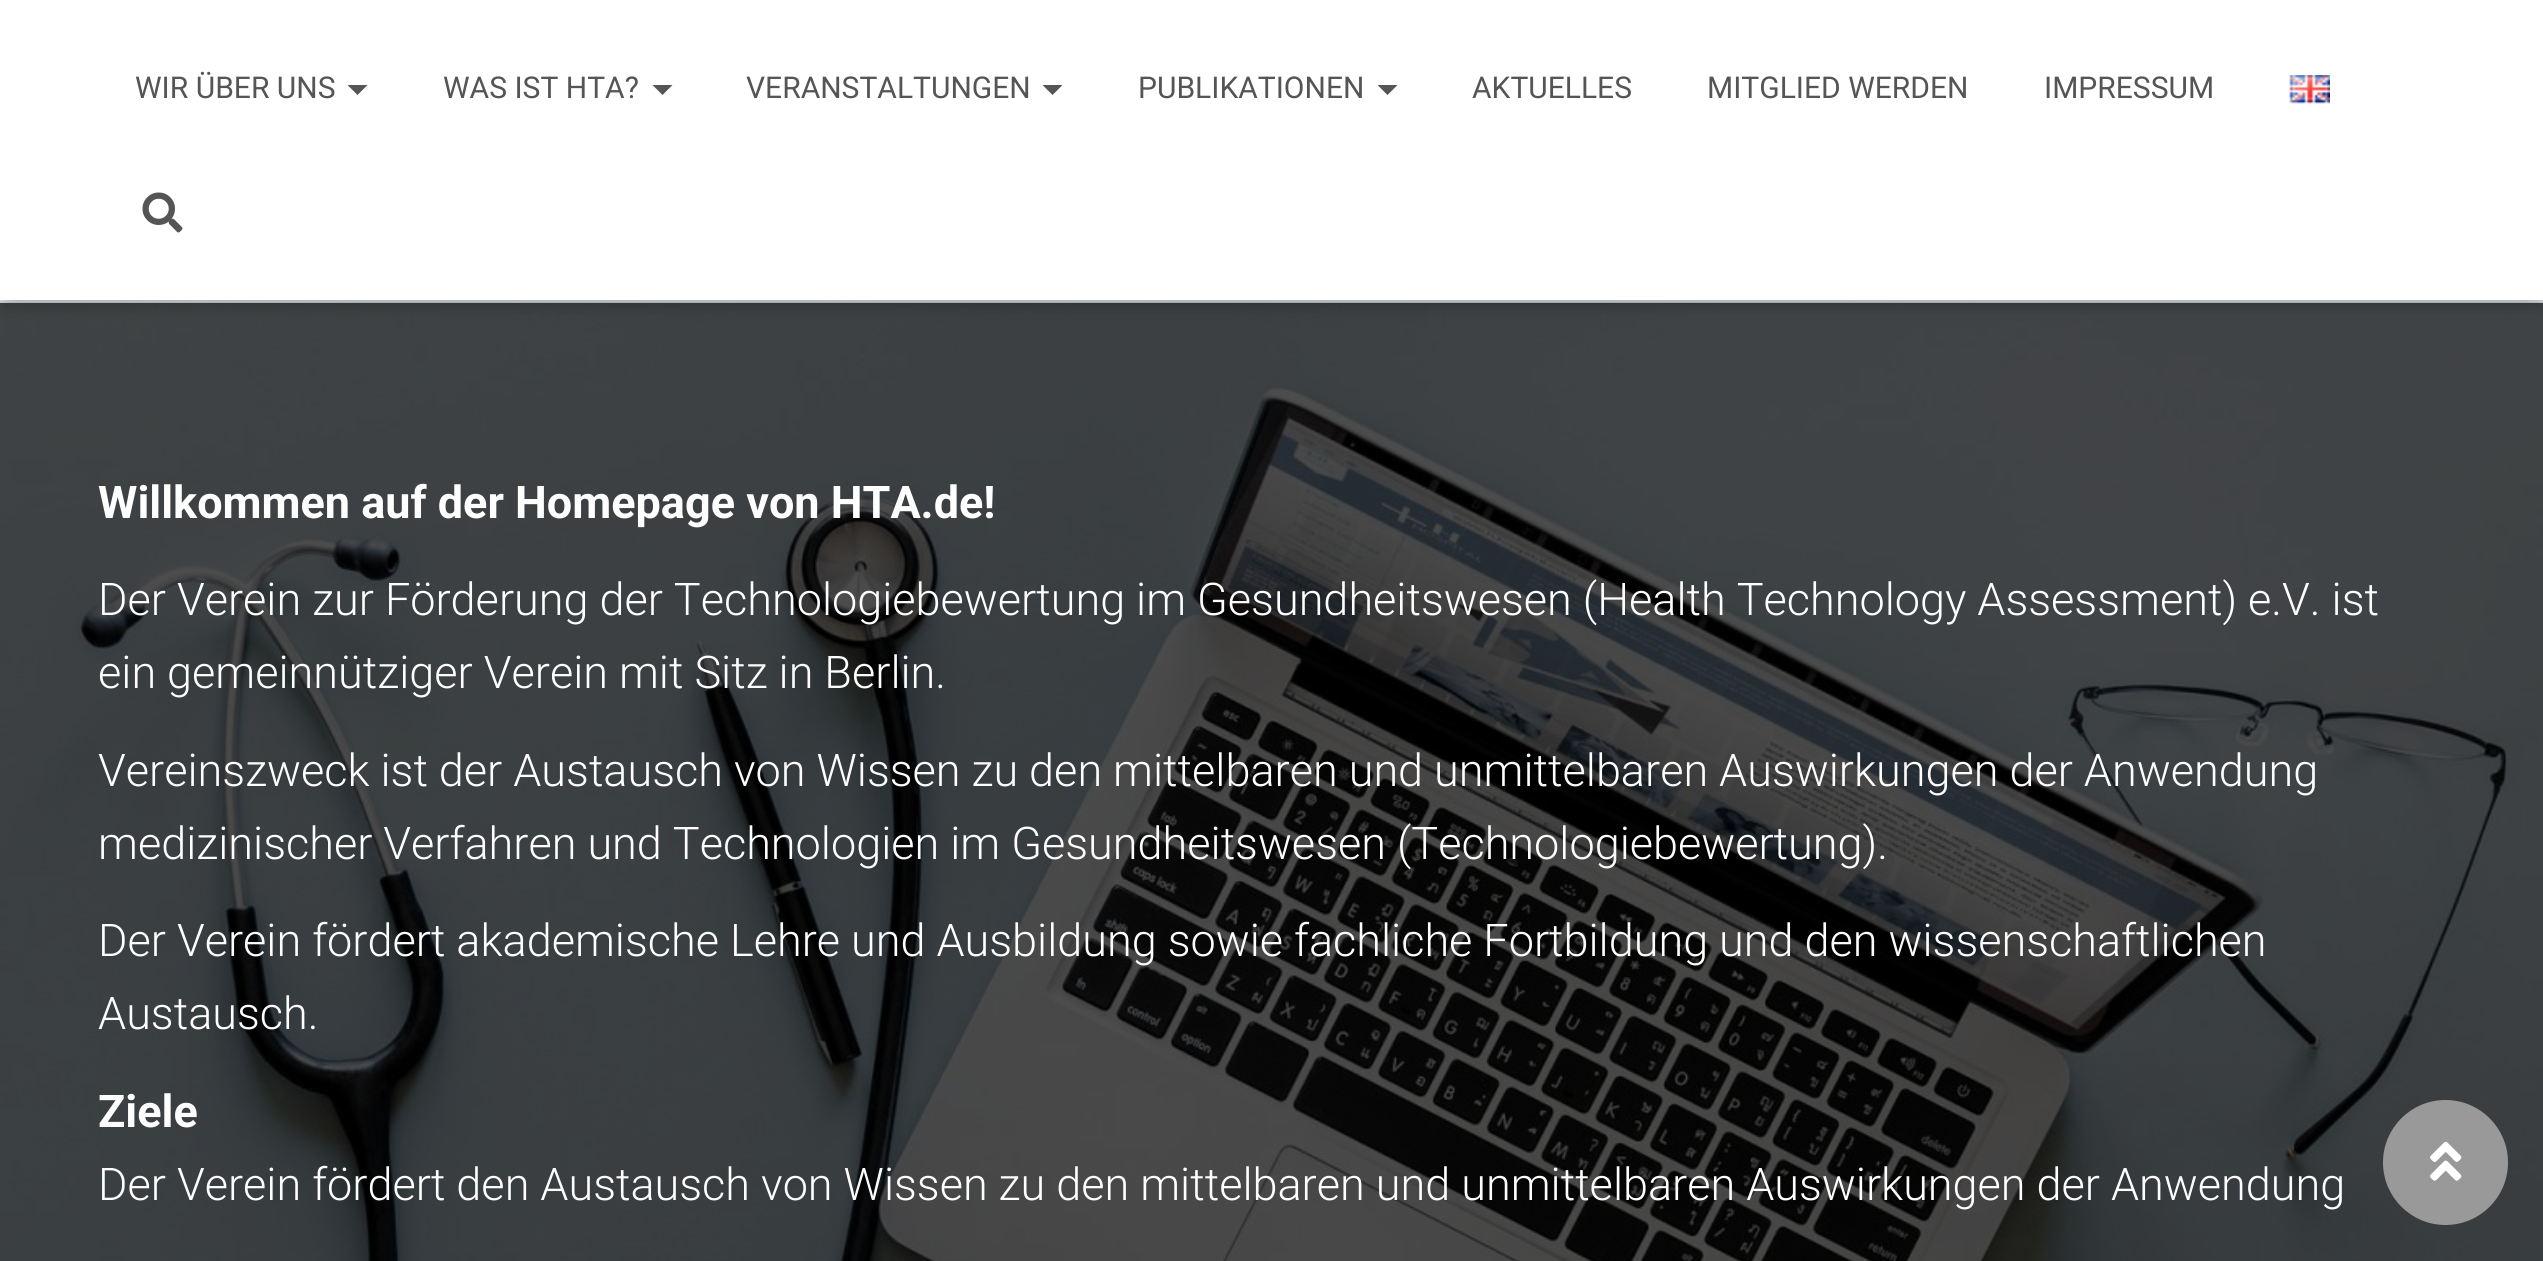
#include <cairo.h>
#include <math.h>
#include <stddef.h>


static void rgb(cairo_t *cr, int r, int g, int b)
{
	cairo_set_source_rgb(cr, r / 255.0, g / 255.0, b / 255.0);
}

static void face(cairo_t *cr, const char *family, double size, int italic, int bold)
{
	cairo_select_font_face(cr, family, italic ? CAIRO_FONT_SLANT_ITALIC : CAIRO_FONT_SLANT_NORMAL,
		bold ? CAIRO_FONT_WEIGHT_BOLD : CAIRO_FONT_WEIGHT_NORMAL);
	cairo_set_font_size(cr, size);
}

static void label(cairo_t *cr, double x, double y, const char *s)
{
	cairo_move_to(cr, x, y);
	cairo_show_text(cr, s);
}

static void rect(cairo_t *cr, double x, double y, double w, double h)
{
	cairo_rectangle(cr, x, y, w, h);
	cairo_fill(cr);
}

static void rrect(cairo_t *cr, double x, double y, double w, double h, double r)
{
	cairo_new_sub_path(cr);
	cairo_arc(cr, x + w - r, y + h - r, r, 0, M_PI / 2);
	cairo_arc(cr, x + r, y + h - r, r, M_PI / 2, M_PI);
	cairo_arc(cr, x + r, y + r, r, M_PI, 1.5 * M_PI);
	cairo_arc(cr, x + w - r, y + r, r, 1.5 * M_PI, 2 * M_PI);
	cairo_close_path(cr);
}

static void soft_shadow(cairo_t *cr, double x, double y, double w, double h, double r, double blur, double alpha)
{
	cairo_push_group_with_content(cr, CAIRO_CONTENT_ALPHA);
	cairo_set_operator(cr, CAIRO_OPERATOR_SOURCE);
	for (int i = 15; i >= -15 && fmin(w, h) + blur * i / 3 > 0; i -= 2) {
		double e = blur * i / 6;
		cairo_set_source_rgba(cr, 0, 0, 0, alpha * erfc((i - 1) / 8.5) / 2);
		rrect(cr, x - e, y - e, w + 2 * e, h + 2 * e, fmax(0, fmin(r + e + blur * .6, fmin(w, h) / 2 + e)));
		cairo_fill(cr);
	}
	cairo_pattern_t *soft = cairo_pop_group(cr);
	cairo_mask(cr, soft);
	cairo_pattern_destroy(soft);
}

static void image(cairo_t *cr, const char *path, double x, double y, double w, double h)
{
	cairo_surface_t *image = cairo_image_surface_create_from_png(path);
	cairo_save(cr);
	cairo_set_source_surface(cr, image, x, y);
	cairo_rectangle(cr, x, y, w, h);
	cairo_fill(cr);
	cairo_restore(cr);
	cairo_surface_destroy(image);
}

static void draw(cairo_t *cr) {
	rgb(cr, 229, 229, 229);
	cairo_paint(cr);
	image(cr, "image2.png", 0, 302, 2543, 959);
	rgb(cr, 0, 0, 0);
	soft_shadow(cr, 5, 15, 2535, 290, 0, 6, 0.1);
	soft_shadow(cr, 0, 3, 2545, 300, 0, 12.5, 0.12);
	soft_shadow(cr, 15, 18, 2515, 270, 0, 12.5, 0.42);
	rgb(cr, 255, 255, 255);
	rect(cr, 0, 0, 2543, 300);
	face(cr, "Roboto", 30, 0, 0);
	rgb(cr, 85, 85, 85);
	label(cr, 135, 98, "WIR ÜBER UNS");
	cairo_new_path(cr);
	cairo_move_to(cr, 347.5, 85);
	cairo_line_to(cr, 367.5, 85);
	cairo_line_to(cr, 357.5, 95);
	cairo_close_path(cr);
	cairo_fill(cr);
	label(cr, 443, 98, "WAS IST HTA?");
	cairo_new_path(cr);
	cairo_move_to(cr, 652.5, 85);
	cairo_line_to(cr, 672.5, 85);
	cairo_line_to(cr, 662.5, 95);
	cairo_close_path(cr);
	cairo_fill(cr);
	label(cr, 746, 98, "VERANSTALTUNGEN");
	cairo_new_path(cr);
	cairo_move_to(cr, 1042.5, 85);
	cairo_line_to(cr, 1062.5, 85);
	cairo_line_to(cr, 1052.5, 95);
	cairo_close_path(cr);
	cairo_fill(cr);
	label(cr, 1138, 98, "PUBLIKATIONEN");
	cairo_new_path(cr);
	cairo_move_to(cr, 1377.5, 85);
	cairo_line_to(cr, 1397.5, 85);
	cairo_line_to(cr, 1387.5, 95);
	cairo_close_path(cr);
	cairo_fill(cr);
	label(cr, 1472, 98, "AKTUELLES");
	label(cr, 1707, 98, "MITGLIED WERDEN");
	label(cr, 2044, 98, "IMPRESSUM");
	image(cr, "image0.png", 2289, 75, 41, 29);
	image(cr, "image1.png", 142, 192, 41, 41);
	face(cr, "Roboto", 45, 0, 1);
	rgb(cr, 254, 254, 254);
	label(cr, 98, 518, "Willkommen auf der Homepage von HTA.de!");
	face(cr, "Roboto Light", 45, 0, 0);
	label(cr, 98, 615, "Der Verein zur Förderung der Technologiebewertung im Gesundheitswesen (Health Technology Assessment) e.V. ist");
	label(cr, 98, 688, "ein gemeinnütziger Verein mit Sitz in Berlin.");
	label(cr, 98, 786, "Vereinszweck ist der Austausch von Wissen zu den mittelbaren und unmittelbaren Auswirkungen der Anwendung");
	label(cr, 98, 859, "medizinischer Verfahren und Technologien im Gesundheitswesen (Technologiebewertung).");
	label(cr, 98, 956, "Der Verein fördert akademische Lehre und Ausbildung sowie fachliche Fortbildung und den wissenschaftlichen");
	label(cr, 98, 1029, "Austausch.");
	face(cr, "Roboto", 45, 0, 1);
	label(cr, 98, 1127, "Ziele");
	face(cr, "Roboto Light", 45, 0, 0);
	label(cr, 98, 1200, "Der Verein fördert den Austausch von Wissen zu den mittelbaren und unmittelbaren Auswirkungen der Anwendung");
	rgb(cr, 153, 153, 153);
	cairo_new_path(cr);
	cairo_arc(cr, 2445.5, 1162.5, 62.5, 0, 2 * M_PI);
	cairo_fill(cr);
	image(cr, "image3.png", 2430, 1141, 32, 40);
}

int main(void) {
	cairo_surface_t *surface = cairo_image_surface_create(CAIRO_FORMAT_RGB24, 2543, 1261);
	cairo_t *cr = cairo_create(surface);
	cairo_font_options_t *options = cairo_font_options_create();
	cairo_font_options_set_hint_metrics(options, CAIRO_HINT_METRICS_OFF);
	cairo_font_options_set_hint_style(options, CAIRO_HINT_STYLE_NONE);
	cairo_set_font_options(cr, options);
	cairo_set_miter_limit(cr, 4);
	draw(cr);
	cairo_surface_write_to_png(surface, "render.png");
	cairo_font_options_destroy(options);
	cairo_destroy(cr);
	cairo_surface_destroy(surface);
	return 0;
}
